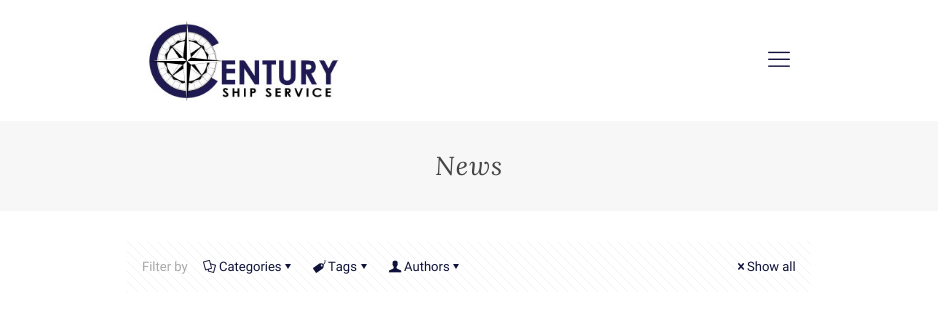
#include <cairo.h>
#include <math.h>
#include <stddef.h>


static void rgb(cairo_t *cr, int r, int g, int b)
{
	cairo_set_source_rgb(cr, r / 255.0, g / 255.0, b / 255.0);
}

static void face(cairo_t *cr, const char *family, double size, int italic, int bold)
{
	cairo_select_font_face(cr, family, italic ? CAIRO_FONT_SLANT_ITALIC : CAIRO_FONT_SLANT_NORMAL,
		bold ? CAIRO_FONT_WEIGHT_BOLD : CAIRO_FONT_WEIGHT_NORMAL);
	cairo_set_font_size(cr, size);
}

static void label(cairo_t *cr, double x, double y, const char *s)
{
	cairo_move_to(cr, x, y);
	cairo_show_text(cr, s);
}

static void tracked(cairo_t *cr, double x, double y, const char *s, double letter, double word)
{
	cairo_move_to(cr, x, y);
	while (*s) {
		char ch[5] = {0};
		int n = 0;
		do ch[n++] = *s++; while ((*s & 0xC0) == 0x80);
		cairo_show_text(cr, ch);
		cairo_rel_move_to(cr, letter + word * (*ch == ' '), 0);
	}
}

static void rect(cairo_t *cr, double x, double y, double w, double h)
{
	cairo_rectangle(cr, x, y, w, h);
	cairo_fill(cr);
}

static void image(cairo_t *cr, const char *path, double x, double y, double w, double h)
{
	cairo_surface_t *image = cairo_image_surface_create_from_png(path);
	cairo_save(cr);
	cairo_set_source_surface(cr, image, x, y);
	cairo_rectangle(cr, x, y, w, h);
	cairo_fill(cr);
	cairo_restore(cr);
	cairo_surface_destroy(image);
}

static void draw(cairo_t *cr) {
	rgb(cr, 255, 255, 255);
	cairo_paint(cr);
	image(cr, "image0.png", 147, 21, 192, 80);
	image(cr, "image1.png", 768, 51, 22, 16);
	rgb(cr, 247, 247, 247);
	rect(cr, 0, 121, 938, 90);
	face(cr, "Lora", 26, 1, 0);
	rgb(cr, 68, 68, 68);
	tracked(cr, 435, 175, "News", 1, 0);
	image(cr, "image2.png", 127, 241, 684, 51);
	face(cr, "Roboto", 13, 0, 0);
	rgb(cr, 168, 168, 168);
	label(cr, 142, 271, "Filter by");
	image(cr, "image3.png", 203, 260, 13, 13);
	rgb(cr, 15, 18, 56);
	label(cr, 219, 271, "Categories");
	cairo_new_path(cr);
	cairo_move_to(cr, 291, 264);
	cairo_line_to(cr, 288, 269);
	cairo_line_to(cr, 285, 264);
	cairo_close_path(cr);
	cairo_fill(cr);
	image(cr, "image4.png", 313, 260, 13, 13);
	label(cr, 328, 271, "Tags");
	cairo_new_path(cr);
	cairo_move_to(cr, 367, 264);
	cairo_line_to(cr, 364, 269);
	cairo_line_to(cr, 361, 264);
	cairo_close_path(cr);
	cairo_fill(cr);
	image(cr, "image5.png", 389, 260, 13, 13);
	label(cr, 404, 271, "Authors");
	cairo_new_path(cr);
	cairo_move_to(cr, 459, 264);
	cairo_line_to(cr, 456, 269);
	cairo_line_to(cr, 453, 264);
	cairo_close_path(cr);
	cairo_fill(cr);
	image(cr, "image6.png", 738, 263, 7, 7);
	label(cr, 747, 271, "Show all");
}

int main(void) {
	cairo_surface_t *surface = cairo_image_surface_create(CAIRO_FORMAT_RGB24, 938, 312);
	cairo_t *cr = cairo_create(surface);
	cairo_font_options_t *options = cairo_font_options_create();
	cairo_font_options_set_hint_metrics(options, CAIRO_HINT_METRICS_OFF);
	cairo_font_options_set_hint_style(options, CAIRO_HINT_STYLE_NONE);
	cairo_set_font_options(cr, options);
	cairo_set_miter_limit(cr, 4);
	draw(cr);
	cairo_surface_write_to_png(surface, "render.png");
	cairo_font_options_destroy(options);
	cairo_destroy(cr);
	cairo_surface_destroy(surface);
	return 0;
}
